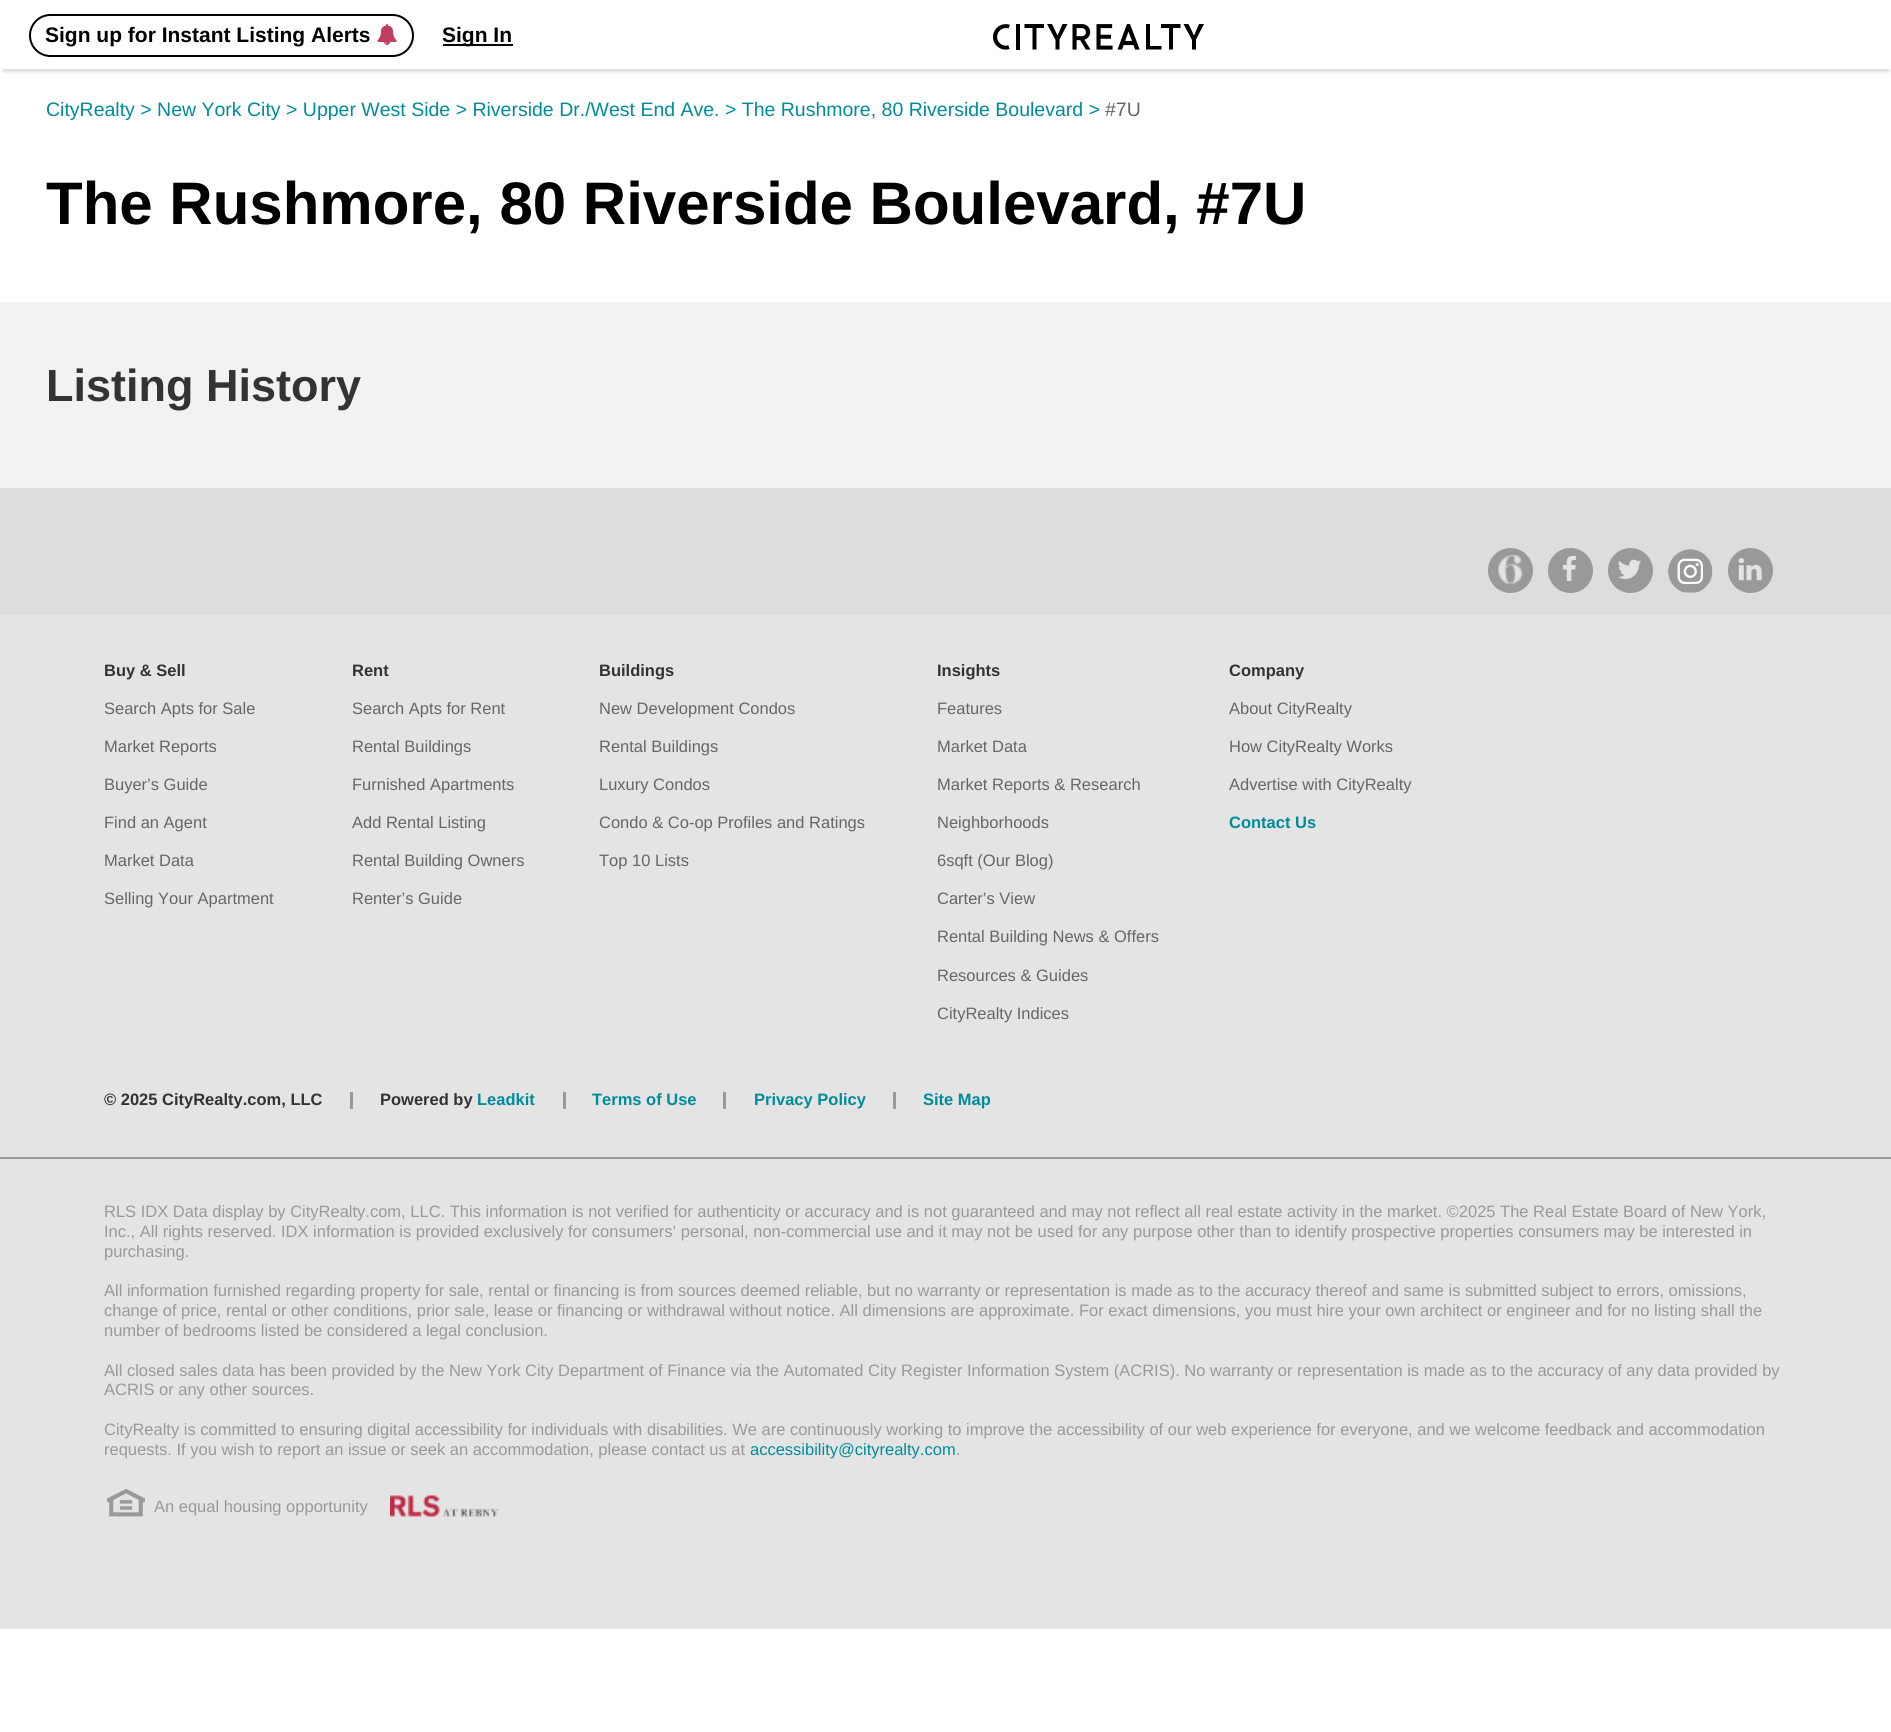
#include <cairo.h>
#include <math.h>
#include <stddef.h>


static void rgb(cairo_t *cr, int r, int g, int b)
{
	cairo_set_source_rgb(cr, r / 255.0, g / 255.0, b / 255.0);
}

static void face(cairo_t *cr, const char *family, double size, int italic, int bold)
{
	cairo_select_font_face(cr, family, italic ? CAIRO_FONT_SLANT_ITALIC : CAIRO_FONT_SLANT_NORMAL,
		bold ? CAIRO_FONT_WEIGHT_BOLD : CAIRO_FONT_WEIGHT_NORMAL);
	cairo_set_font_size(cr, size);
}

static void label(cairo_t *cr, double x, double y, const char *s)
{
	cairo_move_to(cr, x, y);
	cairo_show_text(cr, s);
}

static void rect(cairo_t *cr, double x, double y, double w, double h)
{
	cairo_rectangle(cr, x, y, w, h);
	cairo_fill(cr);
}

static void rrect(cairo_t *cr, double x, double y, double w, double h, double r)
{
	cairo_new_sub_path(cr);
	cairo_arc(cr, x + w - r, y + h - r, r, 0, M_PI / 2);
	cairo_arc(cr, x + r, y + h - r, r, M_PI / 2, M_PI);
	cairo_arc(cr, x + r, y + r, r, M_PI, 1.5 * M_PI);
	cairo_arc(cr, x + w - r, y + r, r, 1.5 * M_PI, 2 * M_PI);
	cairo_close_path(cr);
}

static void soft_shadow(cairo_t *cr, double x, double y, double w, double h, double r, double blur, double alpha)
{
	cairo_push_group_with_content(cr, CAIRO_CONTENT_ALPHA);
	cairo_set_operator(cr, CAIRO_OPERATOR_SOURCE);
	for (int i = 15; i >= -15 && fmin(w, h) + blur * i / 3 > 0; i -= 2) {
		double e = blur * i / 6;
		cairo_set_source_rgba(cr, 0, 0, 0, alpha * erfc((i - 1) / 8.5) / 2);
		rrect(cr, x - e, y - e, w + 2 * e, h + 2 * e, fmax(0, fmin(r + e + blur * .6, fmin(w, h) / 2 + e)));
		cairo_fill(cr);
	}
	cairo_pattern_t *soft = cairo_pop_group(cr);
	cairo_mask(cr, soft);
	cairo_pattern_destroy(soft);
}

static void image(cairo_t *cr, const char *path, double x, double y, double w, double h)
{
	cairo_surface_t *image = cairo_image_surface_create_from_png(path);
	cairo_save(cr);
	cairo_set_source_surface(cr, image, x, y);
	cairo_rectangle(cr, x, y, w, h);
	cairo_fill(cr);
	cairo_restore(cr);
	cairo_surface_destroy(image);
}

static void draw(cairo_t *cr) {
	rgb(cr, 255, 255, 255);
	cairo_paint(cr);
	cairo_save(cr);
	cairo_rectangle(cr, 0, 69, 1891, 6);
	cairo_clip(cr);
	rgb(cr, 221, 221, 221);
	soft_shadow(cr, 3, 9, 1886, 63, 0, 1.5, 1);
	cairo_restore(cr);
	rrect(cr, 30, 15, 383, 41, 20.5);
	rgb(cr, 0, 0, 0);
	cairo_stroke(cr);
	face(cr, "Liberation Sans", 21, 0, 1);
	label(cr, 45, 42, "Sign up for Instant Listing Alerts");
	image(cr, "image0.png", 377, 24, 20, 21);
	rect(cr, 443, 44, 70, 2);
	label(cr, 442, 42, "Sign In");
	image(cr, "image1.png", 993, 24, 17, 26);
	rect(cr, 1016, 24, 4, 26);
	cairo_new_path(cr);
	cairo_move_to(cr, 1044, 24);
	cairo_line_to(cr, 1044, 28);
	cairo_line_to(cr, 1036.5, 28);
	cairo_line_to(cr, 1036.5, 49.5);
	cairo_line_to(cr, 1032.5, 49.5);
	cairo_line_to(cr, 1032.5, 28);
	cairo_line_to(cr, 1024.5, 28);
	cairo_line_to(cr, 1024.5, 24);
	cairo_close_path(cr);
	cairo_move_to(cr, 1062.5, 24);
	cairo_line_to(cr, 1057.5, 35.5);
	cairo_line_to(cr, 1052, 24);
	cairo_line_to(cr, 1047, 24);
	cairo_line_to(cr, 1055.5, 40);
	cairo_line_to(cr, 1055.5, 49.5);
	cairo_line_to(cr, 1059.5, 49.5);
	cairo_line_to(cr, 1059.5, 39.5);
	cairo_line_to(cr, 1067.5, 24);
	cairo_close_path(cr);
	cairo_fill(cr);
	image(cr, "image2.png", 1072, 24, 19, 26);
	image(cr, "image3.png", 1096, 24, 17, 26);
	image(cr, "image4.png", 1117, 24, 23, 26);
	cairo_new_path(cr);
	cairo_move_to(cr, 1146, 24);
	cairo_line_to(cr, 1146, 49.5);
	cairo_line_to(cr, 1161.5, 49.5);
	cairo_line_to(cr, 1161.5, 46);
	cairo_line_to(cr, 1150, 46);
	cairo_line_to(cr, 1150, 24);
	cairo_close_path(cr);
	cairo_fill(cr);
	cairo_new_path(cr);
	cairo_move_to(cr, 1180.5, 24);
	cairo_line_to(cr, 1180.5, 28);
	cairo_line_to(cr, 1173, 28);
	cairo_line_to(cr, 1173, 49.5);
	cairo_line_to(cr, 1169, 49.5);
	cairo_line_to(cr, 1169, 28);
	cairo_line_to(cr, 1161, 28);
	cairo_line_to(cr, 1161, 24);
	cairo_close_path(cr);
	cairo_move_to(cr, 1199, 24);
	cairo_line_to(cr, 1194, 35.5);
	cairo_line_to(cr, 1188.5, 24);
	cairo_line_to(cr, 1183.5, 24);
	cairo_line_to(cr, 1192, 40);
	cairo_line_to(cr, 1192, 49.5);
	cairo_line_to(cr, 1196, 49.5);
	cairo_line_to(cr, 1196, 39.5);
	cairo_line_to(cr, 1204, 24);
	cairo_close_path(cr);
	cairo_fill(cr);
	face(cr, "Liberation Sans", 19.5, 0, 0);
	rgb(cr, 0, 140, 153);
	label(cr, 46, 116, "CityRealty > New York City > Upper West Side > Riverside Dr./West End Ave. > The Rushmore, 80 Riverside Boulevard >");
	rgb(cr, 102, 102, 102);
	label(cr, 1105, 116, "#7U");
	face(cr, "Liberation Sans", 60, 0, 1);
	rgb(cr, 0, 0, 0);
	label(cr, 46, 224, "The Rushmore, 80 Riverside Boulevard, #7U");
	rgb(cr, 242, 242, 242);
	rect(cr, 0, 302, 1891, 186);
	face(cr, "Liberation Sans", 45, 0, 1);
	rgb(cr, 51, 51, 51);
	label(cr, 46, 401, "Listing History");
	rgb(cr, 221, 221, 221);
	rect(cr, 0, 488, 1891, 127);
	rgb(cr, 153, 153, 153);
	cairo_new_path(cr);
	cairo_arc(cr, 1510.5, 570.5, 22.5, 0, 2 * M_PI);
	cairo_fill(cr);
	image(cr, "image5.png", 1498, 555, 25, 29);
	cairo_arc(cr, 1570.5, 570.5, 22.5, 0, 2 * M_PI);
	cairo_fill(cr);
	image(cr, "image6.png", 1562, 555, 14, 26);
	cairo_arc(cr, 1630.5, 570.5, 22.5, 0, 2 * M_PI);
	cairo_fill(cr);
	image(cr, "image7.png", 1618, 559, 24, 20);
	image(cr, "image8.png", 1668, 549, 45, 44);
	cairo_arc(cr, 1750.5, 570.5, 22.5, 0, 2 * M_PI);
	cairo_fill(cr);
	image(cr, "image9.png", 1738, 558, 24, 23);
	rgb(cr, 228, 228, 228);
	rect(cr, 0, 615, 1891, 542);
	face(cr, "Liberation Sans", 16.5, 0, 1);
	rgb(cr, 51, 51, 51);
	label(cr, 104, 676, "Buy & Sell");
	face(cr, "Liberation Sans", 16.5, 0, 0);
	rgb(cr, 102, 102, 102);
	label(cr, 104, 714, "Search Apts for Sale");
	label(cr, 104, 752, "Market Reports");
	label(cr, 104, 790, "Buyer’s Guide");
	label(cr, 104, 828, "Find an Agent");
	label(cr, 104, 866, "Market Data");
	label(cr, 104, 904, "Selling Your Apartment");
	face(cr, "Liberation Sans", 16.5, 0, 1);
	rgb(cr, 51, 51, 51);
	label(cr, 352, 676, "Rent");
	face(cr, "Liberation Sans", 16.5, 0, 0);
	rgb(cr, 102, 102, 102);
	label(cr, 352, 714, "Search Apts for Rent");
	label(cr, 352, 752, "Rental Buildings");
	label(cr, 352, 790, "Furnished Apartments");
	label(cr, 352, 828, "Add Rental Listing");
	label(cr, 352, 866, "Rental Building Owners");
	label(cr, 352, 904, "Renter’s Guide");
	face(cr, "Liberation Sans", 16.5, 0, 1);
	rgb(cr, 51, 51, 51);
	label(cr, 599, 676, "Buildings");
	face(cr, "Liberation Sans", 16.5, 0, 0);
	rgb(cr, 102, 102, 102);
	label(cr, 599, 714, "New Development Condos");
	label(cr, 599, 752, "Rental Buildings");
	label(cr, 599, 790, "Luxury Condos");
	label(cr, 599, 828, "Condo & Co-op Profiles and Ratings");
	label(cr, 599, 866, "Top 10 Lists");
	face(cr, "Liberation Sans", 16.5, 0, 1);
	rgb(cr, 51, 51, 51);
	label(cr, 937, 676, "Insights");
	face(cr, "Liberation Sans", 16.5, 0, 0);
	rgb(cr, 102, 102, 102);
	label(cr, 937, 714, "Features");
	label(cr, 937, 752, "Market Data");
	label(cr, 937, 790, "Market Reports & Research");
	label(cr, 937, 828, "Neighborhoods");
	label(cr, 937, 866, "6sqft (Our Blog)");
	label(cr, 937, 904, "Carter’s View");
	label(cr, 937, 942, "Rental Building News & Offers");
	label(cr, 937, 981, "Resources & Guides");
	label(cr, 937, 1019, "CityRealty Indices");
	face(cr, "Liberation Sans", 16.5, 0, 1);
	rgb(cr, 51, 51, 51);
	label(cr, 1229, 676, "Company");
	face(cr, "Liberation Sans", 16.5, 0, 0);
	rgb(cr, 102, 102, 102);
	label(cr, 1229, 714, "About CityRealty");
	label(cr, 1229, 752, "How CityRealty Works");
	label(cr, 1229, 790, "Advertise with CityRealty");
	face(cr, "Liberation Sans", 16.5, 0, 1);
	rgb(cr, 0, 140, 153);
	label(cr, 1229, 828, "Contact Us");
	rgb(cr, 51, 51, 51);
	label(cr, 104, 1105, "© 2025 CityRealty.com, LLC");
	rgb(cr, 153, 153, 153);
	rect(cr, 350, 1092, 3, 17);
	rgb(cr, 51, 51, 51);
	label(cr, 380, 1105, "Powered by");
	rgb(cr, 0, 140, 153);
	label(cr, 477, 1105, "Leadkit");
	rgb(cr, 153, 153, 153);
	rect(cr, 563, 1092, 3, 17);
	rgb(cr, 0, 140, 153);
	label(cr, 592, 1105, "Terms of Use");
	rgb(cr, 153, 153, 153);
	rect(cr, 723, 1092, 3, 17);
	rgb(cr, 0, 140, 153);
	label(cr, 754, 1105, "Privacy Policy");
	rgb(cr, 153, 153, 153);
	rect(cr, 893, 1092, 3, 17);
	rgb(cr, 0, 140, 153);
	label(cr, 923, 1105, "Site Map");
	rgb(cr, 228, 228, 228);
	rect(cr, 0, 1159, 1891, 470);
	rgb(cr, 153, 153, 153);
	rect(cr, 0, 1157, 1891, 2);
	face(cr, "Liberation Sans", 16.5, 0, 0);
	label(cr, 104, 1217, "RLS IDX Data display by CityRealty.com, LLC. This information is not verified for authenticity or accuracy and is not guaranteed and may not reflect all real estate activity in the market. ©2025 The Real Estate Board of New York,");
	label(cr, 104, 1237, "Inc., All rights reserved. IDX information is provided exclusively for consumers’ personal, non-commercial use and it may not be used for any purpose other than to identify prospective properties consumers may be interested in");
	label(cr, 104, 1257, "purchasing.");
	label(cr, 104, 1296, "All information furnished regarding property for sale, rental or financing is from sources deemed reliable, but no warranty or representation is made as to the accuracy thereof and same is submitted subject to errors, omissions,");
	label(cr, 104, 1316, "change of price, rental or other conditions, prior sale, lease or financing or withdrawal without notice. All dimensions are approximate. For exact dimensions, you must hire your own architect or engineer and for no listing shall the");
	label(cr, 104, 1336, "number of bedrooms listed be considered a legal conclusion.");
	label(cr, 104, 1376, "All closed sales data has been provided by the New York City Department of Finance via the Automated City Register Information System (ACRIS). No warranty or representation is made as to the accuracy of any data provided by");
	label(cr, 104, 1395, "ACRIS or any other sources.");
	label(cr, 104, 1435, "CityRealty is committed to ensuring digital accessibility for individuals with disabilities. We are continuously working to improve the accessibility of our web experience for everyone, and we welcome feedback and accommodation");
	label(cr, 104, 1455, "requests. If you wish to report an issue or seek an accommodation, please contact us at");
	rgb(cr, 0, 140, 153);
	label(cr, 750, 1455, "accessibility@cityrealty.com");
	rgb(cr, 153, 153, 153);
	label(cr, 956, 1455, ".");
	image(cr, "image10.png", 107, 1489, 38, 28);
	label(cr, 154, 1512, "An equal housing opportunity");
	image(cr, "image11.png", 390, 1495, 108, 22);
}

int main(void) {
	cairo_surface_t *surface = cairo_image_surface_create(CAIRO_FORMAT_RGB24, 1891, 1732);
	cairo_t *cr = cairo_create(surface);
	cairo_font_options_t *options = cairo_font_options_create();
	cairo_font_options_set_hint_metrics(options, CAIRO_HINT_METRICS_OFF);
	cairo_font_options_set_hint_style(options, CAIRO_HINT_STYLE_NONE);
	cairo_set_font_options(cr, options);
	cairo_set_miter_limit(cr, 4);
	draw(cr);
	cairo_surface_write_to_png(surface, "render.png");
	cairo_font_options_destroy(options);
	cairo_destroy(cr);
	cairo_surface_destroy(surface);
	return 0;
}
